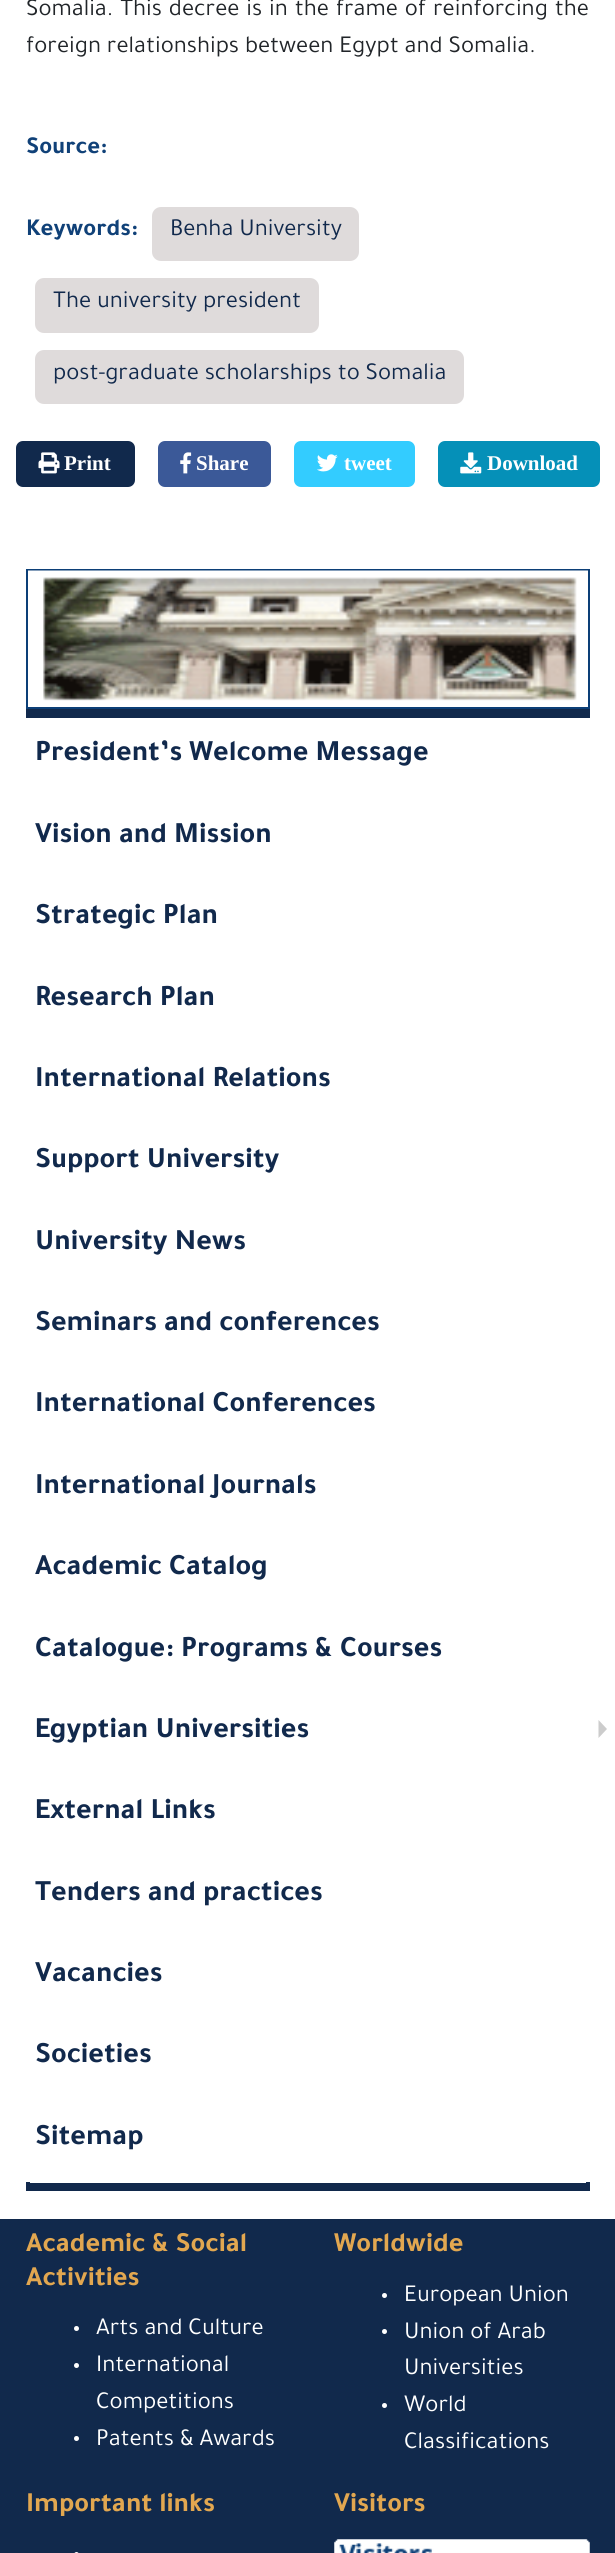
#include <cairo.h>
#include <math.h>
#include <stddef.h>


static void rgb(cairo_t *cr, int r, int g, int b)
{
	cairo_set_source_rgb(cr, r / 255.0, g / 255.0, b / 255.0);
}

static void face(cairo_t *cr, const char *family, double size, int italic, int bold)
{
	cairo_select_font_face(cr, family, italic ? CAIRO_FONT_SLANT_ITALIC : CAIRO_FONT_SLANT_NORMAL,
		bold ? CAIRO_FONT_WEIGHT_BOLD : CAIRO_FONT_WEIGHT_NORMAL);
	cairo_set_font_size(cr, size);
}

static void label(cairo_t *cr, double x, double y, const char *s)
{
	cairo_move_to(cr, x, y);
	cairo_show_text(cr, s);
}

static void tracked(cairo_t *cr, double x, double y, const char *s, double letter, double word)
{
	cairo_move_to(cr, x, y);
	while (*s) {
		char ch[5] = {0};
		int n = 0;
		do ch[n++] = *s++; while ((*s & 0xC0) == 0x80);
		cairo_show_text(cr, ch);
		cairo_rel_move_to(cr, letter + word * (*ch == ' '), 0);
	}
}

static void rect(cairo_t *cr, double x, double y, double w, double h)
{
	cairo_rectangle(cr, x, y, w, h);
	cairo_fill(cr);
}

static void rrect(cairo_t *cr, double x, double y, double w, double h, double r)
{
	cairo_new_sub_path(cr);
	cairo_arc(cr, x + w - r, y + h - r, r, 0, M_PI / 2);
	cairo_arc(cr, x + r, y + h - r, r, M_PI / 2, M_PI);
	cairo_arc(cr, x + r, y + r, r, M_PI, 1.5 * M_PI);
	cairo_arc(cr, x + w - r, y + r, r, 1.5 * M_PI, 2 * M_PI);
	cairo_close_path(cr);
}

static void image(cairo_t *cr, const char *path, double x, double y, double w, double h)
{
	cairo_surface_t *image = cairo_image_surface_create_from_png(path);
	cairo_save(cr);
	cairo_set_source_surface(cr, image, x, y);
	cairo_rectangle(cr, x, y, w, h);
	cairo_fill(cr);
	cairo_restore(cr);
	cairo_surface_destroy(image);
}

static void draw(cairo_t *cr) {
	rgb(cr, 255, 255, 255);
	cairo_paint(cr);
	face(cr, "Tajawal", 24.5, 0, 0);
	rgb(cr, 33, 37, 41);
	tracked(cr, 26, 15, "Somalia. This decree is in the frame of reinforcing the", 0, 1);
	label(cr, 26, 52, "foreign relationships between Egypt and Somalia.");
	face(cr, "Tajawal", 24.5, 0, 1);
	rgb(cr, 16, 65, 120);
	label(cr, 26, 153, "Source:");
	label(cr, 26, 235, "Keywords:");
	rgb(cr, 223, 219, 219);
	rrect(cr, 152, 207, 207, 54, 9);
	cairo_fill(cr);
	face(cr, "Tajawal", 24.5, 0, 0);
	rgb(cr, 17, 41, 76);
	label(cr, 170, 235, "Benha University");
	rgb(cr, 223, 219, 219);
	rrect(cr, 35, 278, 284, 55, 9);
	cairo_fill(cr);
	rgb(cr, 17, 41, 76);
	label(cr, 53, 307, "The university president");
	rgb(cr, 223, 219, 219);
	rrect(cr, 35, 350, 429, 54, 9);
	cairo_fill(cr);
	rgb(cr, 17, 41, 76);
	label(cr, 53, 379, "post-graduate scholarships to Somalia");
	rrect(cr, 16, 441, 119, 46, 7);
	cairo_fill(cr);
	image(cr, "image0.png", 38, 452, 22, 22);
	face(cr, "Liberation Serif", 21, 0, 1);
	rgb(cr, 255, 255, 255);
	label(cr, 64, 470, "Print");
	rgb(cr, 59, 89, 152);
	rrect(cr, 158, 441, 113, 46, 7);
	cairo_fill(cr);
	image(cr, "image1.png", 180, 452, 12, 22);
	rgb(cr, 255, 255, 255);
	label(cr, 196, 470, "Share");
	rgb(cr, 51, 204, 255);
	rrect(cr, 294, 441, 121, 46, 7);
	cairo_fill(cr);
	image(cr, "image2.png", 317, 454, 21, 18);
	rgb(cr, 255, 255, 255);
	label(cr, 344, 470, "tweet");
	rgb(cr, 5, 144, 184);
	rrect(cr, 438, 441, 162, 46, 7);
	cairo_fill(cr);
	image(cr, "image3.png", 460, 452, 22, 22);
	rgb(cr, 255, 255, 255);
	label(cr, 487, 470, "Download");
	cairo_rectangle(cr, 27, 570, 562, 138);
	rgb(cr, 12, 63, 119);
	cairo_stroke(cr);
	image(cr, "image4.png", 28, 570, 560, 131);
	rgb(cr, 17, 41, 76);
	rect(cr, 26, 709, 564, 9);
	face(cr, "Tajawal", 29.75, 0, 1);
	label(cr, 35, 760, "President’s Welcome Message");
	label(cr, 35, 842, "Vision and Mission");
	label(cr, 35, 923, "Strategic Plan");
	label(cr, 35, 1005, "Research Plan");
	label(cr, 35, 1086, "International Relations");
	label(cr, 35, 1167, "Support University");
	label(cr, 35, 1249, "University News");
	label(cr, 35, 1330, "Seminars and conferences");
	label(cr, 35, 1411, "International Conferences");
	label(cr, 35, 1493, "International Journals");
	label(cr, 35, 1574, "Academic Catalog");
	label(cr, 35, 1656, "Catalogue: Programs & Courses");
	label(cr, 35, 1737, "Egyptian Universities");
	rgb(cr, 204, 204, 204);
	cairo_new_path(cr);
	cairo_move_to(cr, 598.5, 1738);
	cairo_line_to(cr, 598.5, 1720);
	cairo_line_to(cr, 607, 1729);
	cairo_close_path(cr);
	cairo_fill(cr);
	rgb(cr, 17, 41, 76);
	label(cr, 35, 1818, "External Links");
	label(cr, 35, 1900, "Tenders and practices");
	label(cr, 35, 1981, "Vacancies");
	label(cr, 35, 2062, "Societies");
	rect(cr, 26, 2182, 564, 9);
	rgb(cr, 255, 255, 255);
	rect(cr, 30, 2182, 556, 1);
	rgb(cr, 17, 41, 76);
	label(cr, 35, 2144, "Sitemap");
	rect(cr, 0, 2219, 615, 334);
	face(cr, "Tajawal", 28, 0, 1);
	rgb(cr, 226, 167, 80);
	label(cr, 26, 2251, "Academic & Social");
	label(cr, 26, 2285, "Activities");
	rgb(cr, 255, 255, 255);
	cairo_new_path(cr);
	cairo_arc(cr, 76.5, 2328.5, 2.5, 0, 2 * M_PI);
	cairo_fill(cr);
	face(cr, "Tajawal", 24.5, 0, 0);
	label(cr, 96, 2334, "Arts and Culture");
	cairo_new_path(cr);
	cairo_arc(cr, 76.5, 2365.5, 2.5, 0, 2 * M_PI);
	cairo_fill(cr);
	label(cr, 96, 2371, "International");
	label(cr, 96, 2408, "Competitions");
	cairo_new_path(cr);
	cairo_arc(cr, 76.5, 2438.5, 2.5, 0, 2 * M_PI);
	cairo_fill(cr);
	label(cr, 96, 2445, "Patents & Awards");
	face(cr, "Tajawal", 28, 0, 1);
	rgb(cr, 226, 167, 80);
	label(cr, 334, 2251, "Worldwide");
	rgb(cr, 255, 255, 255);
	cairo_new_path(cr);
	cairo_arc(cr, 384.5, 2295.5, 2.5, 0, 2 * M_PI);
	cairo_fill(cr);
	face(cr, "Tajawal", 24.5, 0, 0);
	label(cr, 404, 2301, "European Union");
	cairo_new_path(cr);
	cairo_arc(cr, 384.5, 2331.5, 2.5, 0, 2 * M_PI);
	cairo_fill(cr);
	label(cr, 404, 2338, "Union of Arab");
	label(cr, 404, 2374, "Universities");
	cairo_new_path(cr);
	cairo_arc(cr, 384.5, 2405.5, 2.5, 0, 2 * M_PI);
	cairo_fill(cr);
	label(cr, 404, 2411, "World");
	label(cr, 404, 2448, "Classifications");
	face(cr, "Tajawal", 28, 0, 1);
	rgb(cr, 226, 167, 80);
	label(cr, 26, 2511, "Important links");
	rgb(cr, 255, 255, 255);
	rrect(cr, 74, 2552, 5, 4, 2.5);
	cairo_fill(cr);
	rgb(cr, 226, 167, 80);
	label(cr, 334, 2511, "Visitors");
	image(cr, "image5.png", 334, 2539, 256, 14);
}

int main(void) {
	cairo_surface_t *surface = cairo_image_surface_create(CAIRO_FORMAT_RGB24, 615, 2553);
	cairo_t *cr = cairo_create(surface);
	cairo_font_options_t *options = cairo_font_options_create();
	cairo_font_options_set_hint_metrics(options, CAIRO_HINT_METRICS_OFF);
	cairo_font_options_set_hint_style(options, CAIRO_HINT_STYLE_NONE);
	cairo_set_font_options(cr, options);
	cairo_set_miter_limit(cr, 4);
	draw(cr);
	cairo_surface_write_to_png(surface, "render.png");
	cairo_font_options_destroy(options);
	cairo_destroy(cr);
	cairo_surface_destroy(surface);
	return 0;
}
